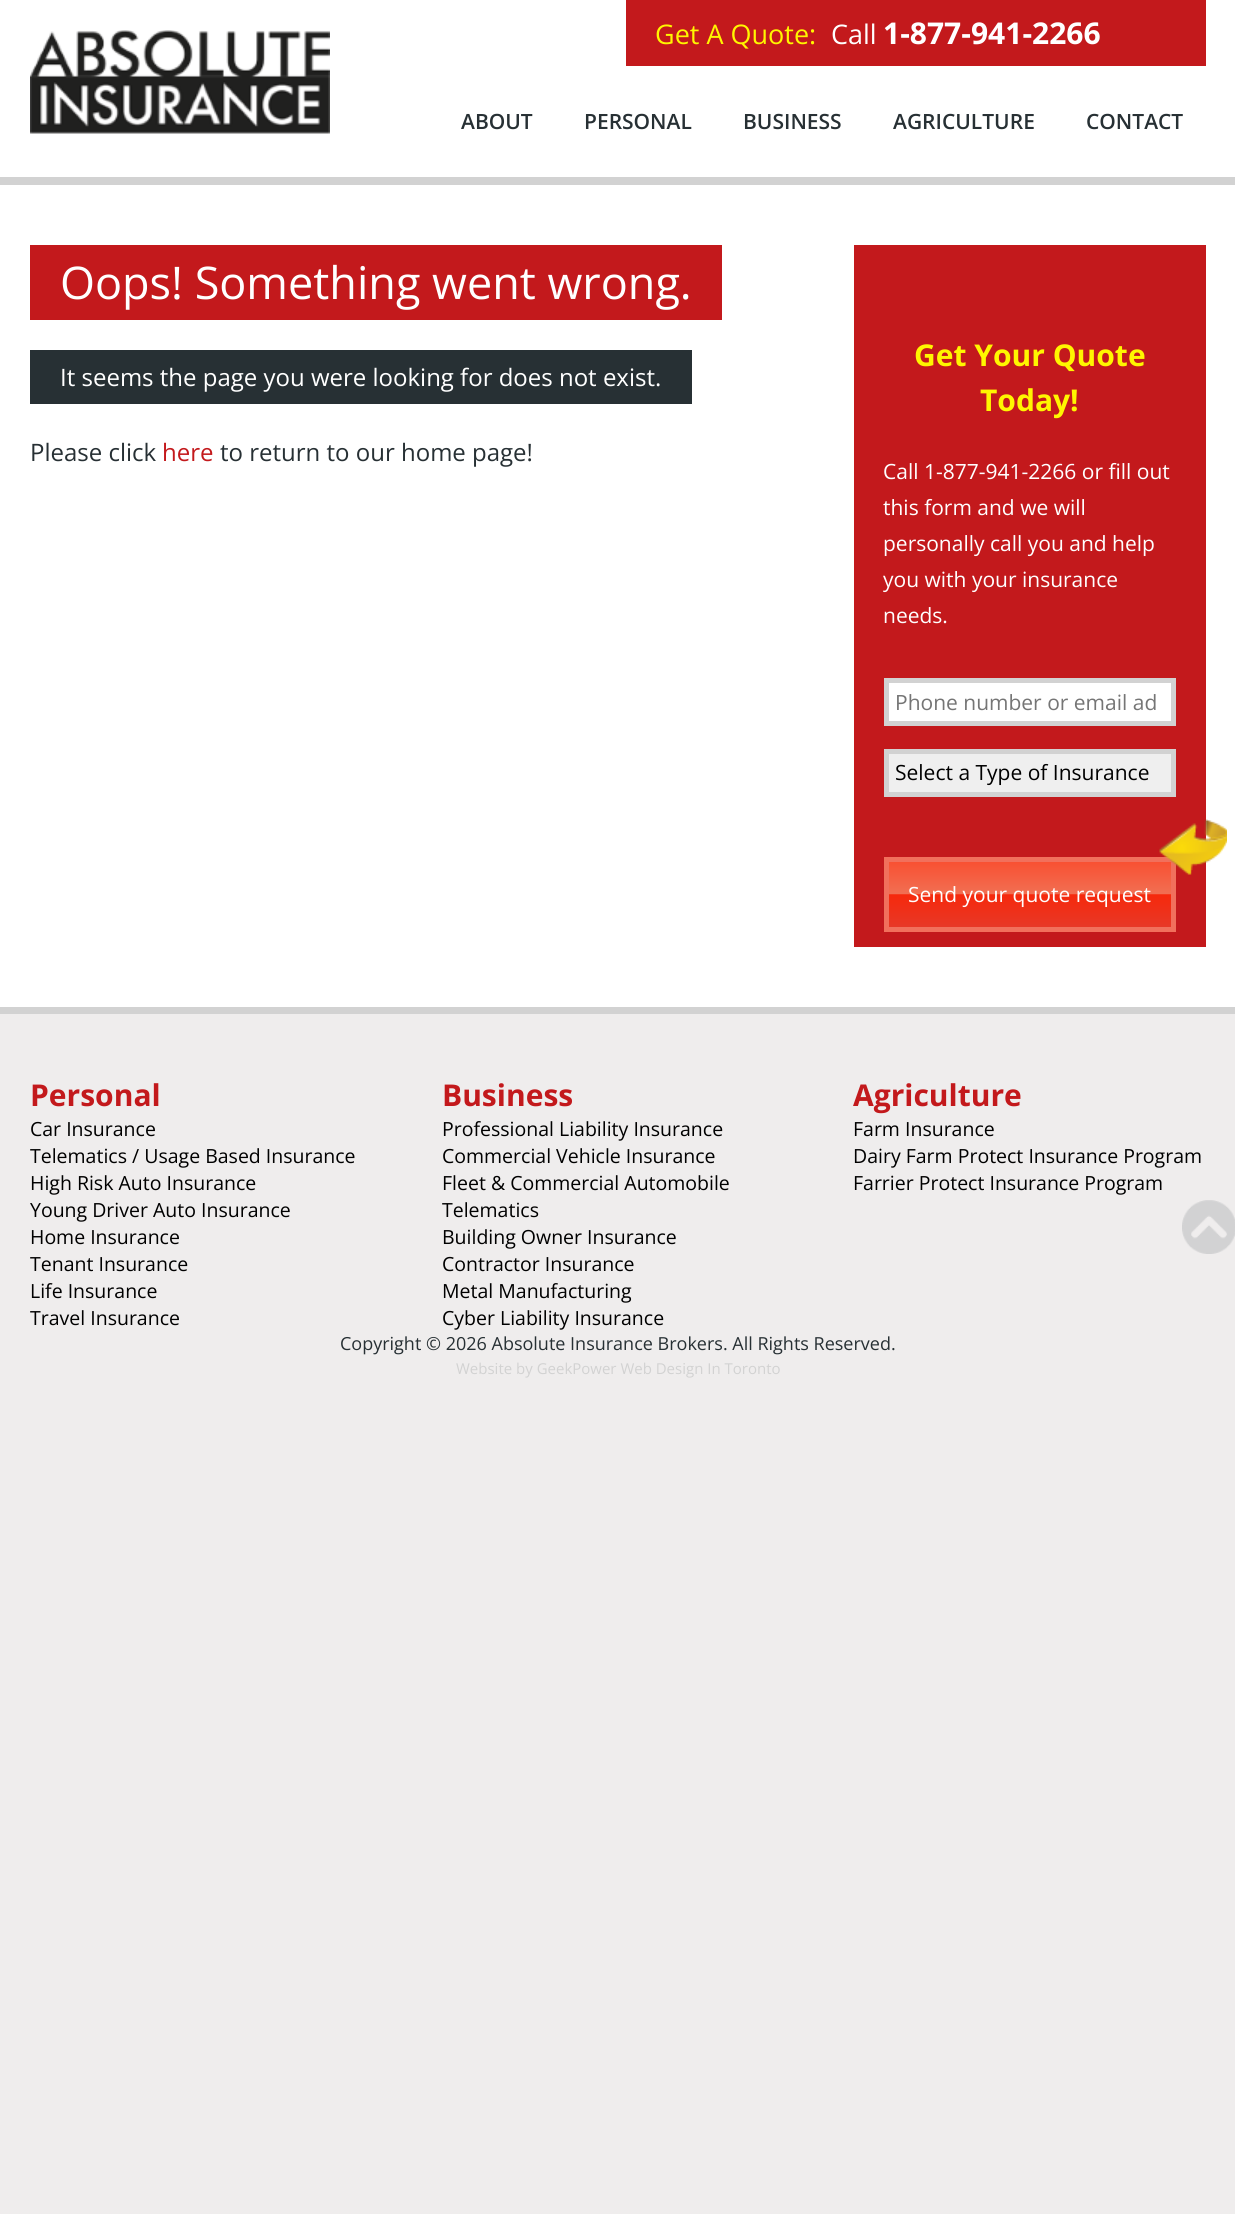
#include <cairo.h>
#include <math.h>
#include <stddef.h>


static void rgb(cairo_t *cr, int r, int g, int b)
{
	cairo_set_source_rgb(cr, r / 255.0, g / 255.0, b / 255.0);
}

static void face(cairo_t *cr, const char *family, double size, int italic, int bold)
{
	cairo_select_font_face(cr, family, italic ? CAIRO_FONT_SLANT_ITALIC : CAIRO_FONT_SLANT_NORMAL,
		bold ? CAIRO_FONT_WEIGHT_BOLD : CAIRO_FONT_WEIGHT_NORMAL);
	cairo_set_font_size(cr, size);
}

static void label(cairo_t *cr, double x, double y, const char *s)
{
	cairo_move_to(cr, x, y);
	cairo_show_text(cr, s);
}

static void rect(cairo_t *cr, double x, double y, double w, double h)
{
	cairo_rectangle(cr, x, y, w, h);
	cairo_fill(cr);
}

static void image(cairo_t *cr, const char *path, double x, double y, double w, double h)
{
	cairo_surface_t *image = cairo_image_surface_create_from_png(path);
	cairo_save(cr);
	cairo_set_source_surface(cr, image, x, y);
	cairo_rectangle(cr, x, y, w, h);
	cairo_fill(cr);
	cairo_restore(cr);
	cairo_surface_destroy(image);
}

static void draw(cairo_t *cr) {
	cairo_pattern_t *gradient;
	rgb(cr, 239, 237, 237);
	cairo_paint(cr);
	rgb(cr, 255, 255, 255);
	rect(cr, 0, 0, 1235, 177);
	rgb(cr, 210, 210, 210);
	rect(cr, 0, 177, 1235, 8);
	image(cr, "image0.png", 30, 30, 300, 104);
	rgb(cr, 195, 25, 28);
	rect(cr, 626, 0, 580, 66);
	face(cr, "Open Sans", 27, 0, 0);
	rgb(cr, 255, 246, 0);
	label(cr, 655, 44, "Get A Quote:");
	rgb(cr, 255, 255, 255);
	label(cr, 831, 44, "Call");
	face(cr, "Open Sans", 30, 0, 1);
	label(cr, 883, 44, "1-877-941-2266");
	face(cr, "Open Sans SemiBold", 21, 0, 0);
	rgb(cr, 39, 48, 52);
	label(cr, 461, 129, "ABOUT");
	label(cr, 584, 129, "PERSONAL");
	label(cr, 743, 129, "BUSINESS");
	label(cr, 893, 129, "AGRICULTURE");
	label(cr, 1086, 129, "CONTACT");
	rgb(cr, 255, 255, 255);
	rect(cr, 0, 185, 1235, 822);
	rgb(cr, 210, 210, 210);
	rect(cr, 0, 1007, 1235, 7);
	rgb(cr, 195, 25, 28);
	rect(cr, 30, 245, 692, 75);
	face(cr, "Open Sans", 45, 0, 0);
	rgb(cr, 255, 255, 255);
	label(cr, 60, 299, "Oops! Something went wrong.");
	rgb(cr, 39, 48, 52);
	rect(cr, 30, 350, 662, 54);
	face(cr, "Open Sans", 24, 0, 0);
	rgb(cr, 255, 255, 255);
	label(cr, 60, 386, "It seems the page you were looking for does not exist.");
	rgb(cr, 39, 48, 52);
	label(cr, 30, 461, "Please click");
	rgb(cr, 195, 25, 28);
	label(cr, 162, 461, "here");
	rgb(cr, 39, 48, 52);
	label(cr, 220, 461, "to return to our home page!");
	rgb(cr, 195, 25, 28);
	rect(cr, 854, 245, 352, 702);
	face(cr, "Open Sans", 30, 0, 1);
	rgb(cr, 255, 246, 0);
	label(cr, 914, 366, "Get Your Quote");
	label(cr, 980, 411, "Today!");
	face(cr, "Open Sans", 21, 0, 0);
	rgb(cr, 255, 255, 255);
	label(cr, 883, 479, "Call 1-877-941-2266 or fill out");
	label(cr, 883, 515, "this form and we will");
	label(cr, 883, 551, "personally call you and help");
	label(cr, 883, 587, "you with your insurance");
	label(cr, 883, 623, "needs.");
	cairo_rectangle(cr, 886.5, 680.5, 287, 43);
	cairo_fill_preserve(cr);
	rgb(cr, 210, 210, 210);
	cairo_set_line_width(cr, 5);
	cairo_stroke(cr);
	rgb(cr, 117, 117, 117);
	label(cr, 895, 710, "Phone number or email ad");
	rgb(cr, 239, 239, 239);
	cairo_rectangle(cr, 886.5, 751.5, 287, 43);
	cairo_fill_preserve(cr);
	rgb(cr, 210, 210, 210);
	cairo_stroke(cr);
	rgb(cr, 0, 0, 0);
	label(cr, 895, 780, "Select a Type of Insurance");
	gradient = cairo_pattern_create_linear(1030, 861, 1030, 927);
	cairo_pattern_add_color_stop_rgba(gradient, 0.01, 0.973, 0.314, 0.196, 1);
	cairo_pattern_add_color_stop_rgba(gradient, 0.5, 0.945, 0.435, 0.322, 1);
	cairo_pattern_add_color_stop_rgba(gradient, 0.51, 0.965, 0.161, 0.047, 1);
	cairo_pattern_add_color_stop_rgba(gradient, 0.71, 0.941, 0.184, 0.09, 1);
	cairo_pattern_add_color_stop_rgba(gradient, 1, 0.906, 0.22, 0.153, 1);
	cairo_set_source(cr, gradient);
	cairo_pattern_destroy(gradient);
	rect(cr, 889, 862, 282, 65);
	cairo_rectangle(cr, 886.5, 859.5, 287, 70);
	rgb(cr, 241, 112, 92);
	cairo_stroke(cr);
	image(cr, "image1.png", 1159, 819, 68, 56);
	rgb(cr, 255, 255, 255);
	label(cr, 908, 902, "Send your quote request");
	face(cr, "Open Sans", 30, 0, 1);
	rgb(cr, 195, 25, 28);
	label(cr, 30, 1106, "Personal");
	face(cr, "Open Sans", 19.5, 0, 0);
	rgb(cr, 0, 0, 0);
	label(cr, 30, 1136, "Car Insurance");
	label(cr, 30, 1163, "Telematics / Usage Based Insurance");
	label(cr, 30, 1190, "High Risk Auto Insurance");
	label(cr, 30, 1217, "Young Driver Auto Insurance");
	label(cr, 30, 1244, "Home Insurance");
	label(cr, 30, 1271, "Tenant Insurance");
	label(cr, 30, 1298, "Life Insurance");
	label(cr, 30, 1325, "Travel Insurance");
	face(cr, "Open Sans", 30, 0, 1);
	rgb(cr, 195, 25, 28);
	label(cr, 442, 1106, "Business");
	face(cr, "Open Sans", 19.5, 0, 0);
	rgb(cr, 0, 0, 0);
	label(cr, 442, 1136, "Professional Liability Insurance");
	label(cr, 442, 1163, "Commercial Vehicle Insurance");
	label(cr, 442, 1190, "Fleet & Commercial Automobile");
	label(cr, 442, 1217, "Telematics");
	label(cr, 442, 1244, "Building Owner Insurance");
	label(cr, 442, 1271, "Contractor Insurance");
	label(cr, 442, 1298, "Metal Manufacturing");
	label(cr, 442, 1325, "Cyber Liability Insurance");
	face(cr, "Open Sans", 30, 0, 1);
	rgb(cr, 195, 25, 28);
	label(cr, 853, 1106, "Agriculture");
	face(cr, "Open Sans", 19.5, 0, 0);
	rgb(cr, 0, 0, 0);
	label(cr, 853, 1136, "Farm Insurance");
	label(cr, 853, 1163, "Dairy Farm Protect Insurance Program");
	label(cr, 853, 1190, "Farrier Protect Insurance Program");
	image(cr, "image2.png", 1182, 1200, 53, 54);
	face(cr, "Open Sans", 18, 0, 0);
	rgb(cr, 39, 48, 52);
	label(cr, 340, 1350, "Copyright © 2026 Absolute Insurance Brokers. All Rights Reserved.");
	face(cr, "Open Sans", 15, 0, 0);
	rgb(cr, 210, 210, 210);
	label(cr, 456, 1374, "Website by GeekPower Web Design In Toronto");
}

int main(void) {
	cairo_surface_t *surface = cairo_image_surface_create(CAIRO_FORMAT_RGB24, 1235, 2214);
	cairo_t *cr = cairo_create(surface);
	cairo_font_options_t *options = cairo_font_options_create();
	cairo_font_options_set_hint_metrics(options, CAIRO_HINT_METRICS_OFF);
	cairo_font_options_set_hint_style(options, CAIRO_HINT_STYLE_NONE);
	cairo_set_font_options(cr, options);
	cairo_set_miter_limit(cr, 4);
	draw(cr);
	cairo_surface_write_to_png(surface, "render.png");
	cairo_font_options_destroy(options);
	cairo_destroy(cr);
	cairo_surface_destroy(surface);
	return 0;
}
